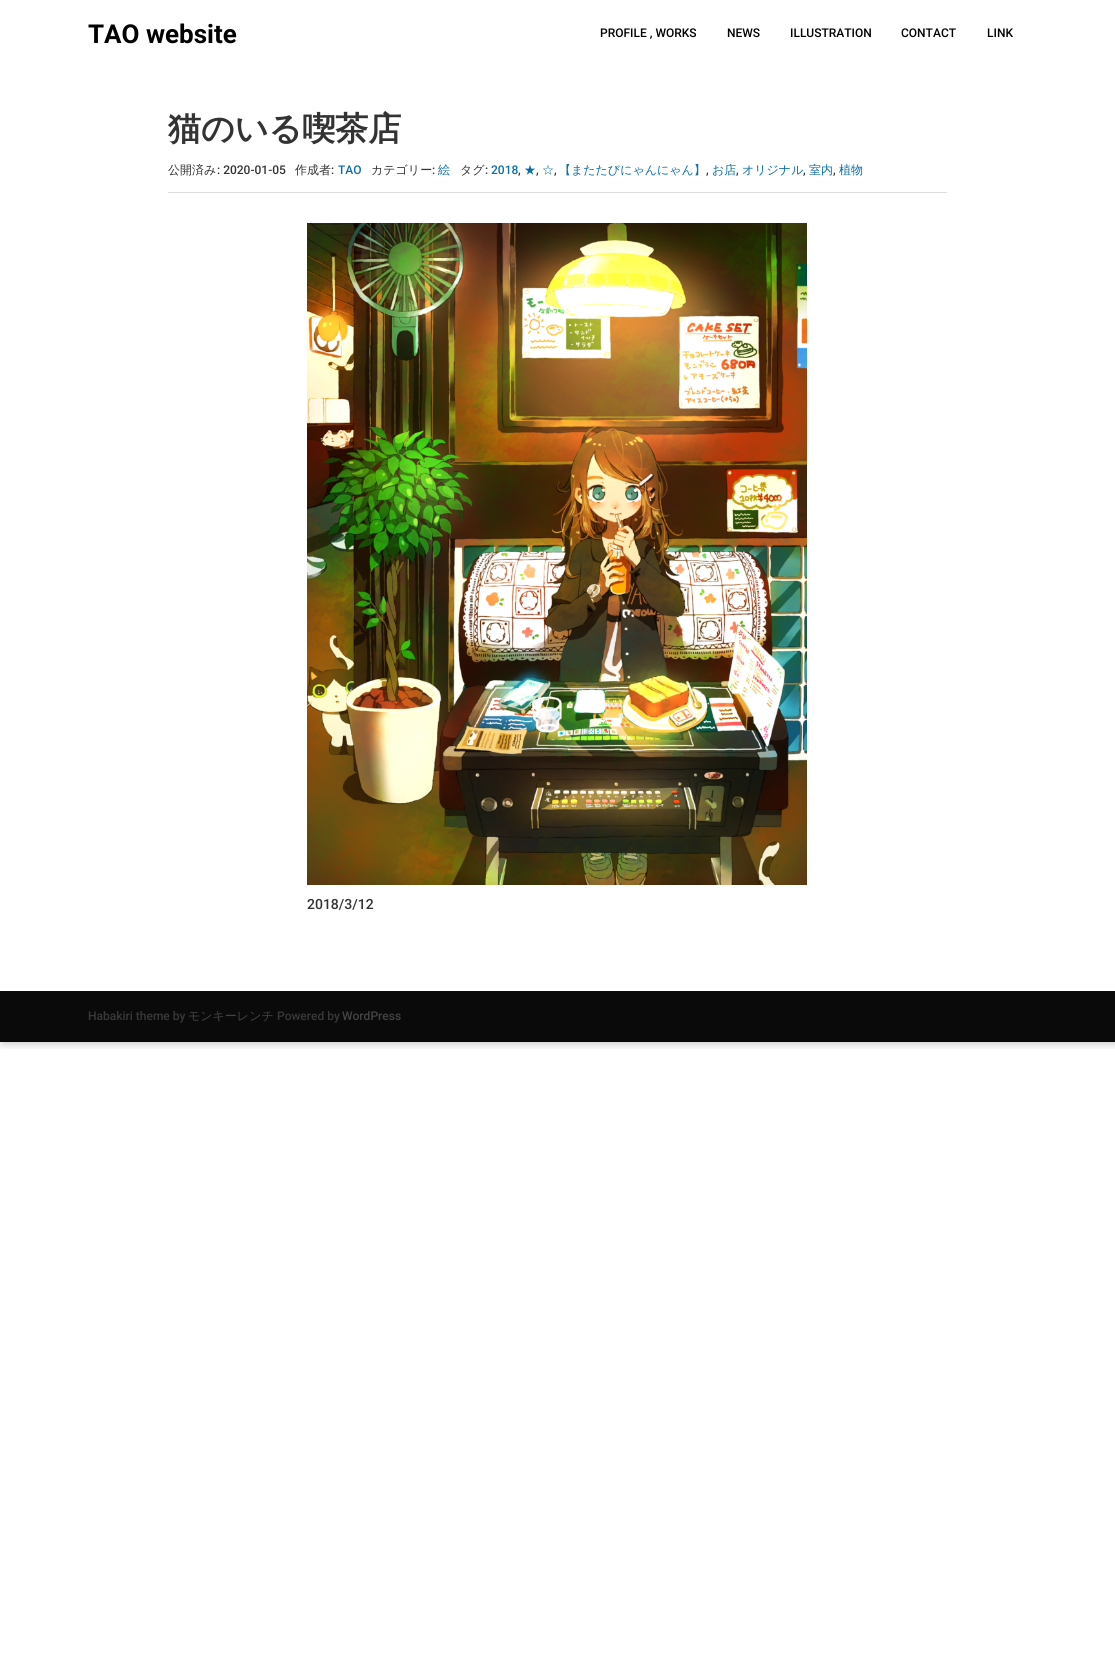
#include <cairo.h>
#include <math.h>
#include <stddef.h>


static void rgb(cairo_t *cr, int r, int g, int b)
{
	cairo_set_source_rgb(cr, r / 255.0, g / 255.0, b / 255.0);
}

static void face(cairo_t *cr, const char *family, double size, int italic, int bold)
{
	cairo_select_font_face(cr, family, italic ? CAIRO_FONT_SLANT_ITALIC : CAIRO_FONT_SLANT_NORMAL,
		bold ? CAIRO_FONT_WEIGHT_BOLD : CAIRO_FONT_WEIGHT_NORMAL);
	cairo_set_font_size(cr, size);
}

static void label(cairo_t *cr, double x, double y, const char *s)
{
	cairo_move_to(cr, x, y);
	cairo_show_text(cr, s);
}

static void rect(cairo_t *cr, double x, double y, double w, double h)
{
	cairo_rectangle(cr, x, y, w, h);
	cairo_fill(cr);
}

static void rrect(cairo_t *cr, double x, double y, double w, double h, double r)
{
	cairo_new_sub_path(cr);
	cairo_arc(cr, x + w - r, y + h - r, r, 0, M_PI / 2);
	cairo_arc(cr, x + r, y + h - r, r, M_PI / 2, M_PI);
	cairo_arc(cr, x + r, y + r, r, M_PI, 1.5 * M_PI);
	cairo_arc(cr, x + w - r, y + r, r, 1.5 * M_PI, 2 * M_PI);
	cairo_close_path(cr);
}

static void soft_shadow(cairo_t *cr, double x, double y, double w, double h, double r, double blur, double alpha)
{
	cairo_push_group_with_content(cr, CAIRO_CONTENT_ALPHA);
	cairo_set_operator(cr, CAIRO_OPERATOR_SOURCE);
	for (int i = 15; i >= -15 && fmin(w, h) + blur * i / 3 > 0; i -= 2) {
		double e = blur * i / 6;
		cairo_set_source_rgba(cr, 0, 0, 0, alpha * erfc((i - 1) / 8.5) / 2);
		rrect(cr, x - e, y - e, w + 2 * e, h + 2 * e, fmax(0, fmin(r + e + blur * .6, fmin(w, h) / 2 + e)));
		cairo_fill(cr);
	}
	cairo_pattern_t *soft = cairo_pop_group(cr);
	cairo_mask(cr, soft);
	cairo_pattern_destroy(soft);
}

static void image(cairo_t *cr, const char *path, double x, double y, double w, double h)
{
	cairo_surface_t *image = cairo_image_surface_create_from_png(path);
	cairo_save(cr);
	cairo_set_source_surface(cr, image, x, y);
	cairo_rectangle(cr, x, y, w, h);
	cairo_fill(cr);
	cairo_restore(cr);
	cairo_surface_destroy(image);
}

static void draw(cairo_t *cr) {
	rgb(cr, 255, 255, 255);
	cairo_paint(cr);
	cairo_save(cr);
	cairo_rectangle(cr, 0, 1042, 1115, 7);
	cairo_clip(cr);
	rgb(cr, 0, 0, 0);
	soft_shadow(cr, 3, 0, 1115, 1042, 0, 5, 0.3);
	cairo_restore(cr);
	face(cr, "Roboto", 26, 0, 1);
	rgb(cr, 0, 0, 0);
	label(cr, 88, 43, "TAO website");
	face(cr, "Roboto Medium", 12, 0, 0);
	label(cr, 600, 37, "PROFILE , WORKS");
	label(cr, 727, 37, "NEWS");
	label(cr, 790, 37, "ILLUSTRATION");
	label(cr, 901, 37, "CONTACT");
	label(cr, 987, 37, "LINK");
	face(cr, "WenQuanYi Zen Hei", 33, 0, 1);
	rgb(cr, 51, 51, 51);
	label(cr, 168, 140, "猫のいる喫茶店");
	rgb(cr, 221, 221, 221);
	rect(cr, 168, 192, 779, 1);
	face(cr, "WenQuanYi Zen Hei Medium", 12, 0, 0);
	rgb(cr, 51, 51, 51);
	label(cr, 168, 174, "公開済み");
	face(cr, "Roboto Medium", 12, 0, 0);
	label(cr, 217, 174, ": 2020-01-05");
	face(cr, "WenQuanYi Zen Hei Medium", 12, 0, 0);
	label(cr, 295, 174, "作成者");
	face(cr, "Roboto Medium", 12, 0, 0);
	label(cr, 331, 174, ":");
	rgb(cr, 11, 110, 168);
	label(cr, 338, 174, "TAO");
	face(cr, "WenQuanYi Zen Hei Medium", 12, 0, 0);
	rgb(cr, 51, 51, 51);
	label(cr, 371, 174, "カテゴリー");
	face(cr, "Roboto Medium", 12, 0, 0);
	label(cr, 432, 174, ":");
	face(cr, "WenQuanYi Zen Hei Medium", 12, 0, 0);
	rgb(cr, 11, 110, 168);
	label(cr, 438, 174, "絵");
	rgb(cr, 51, 51, 51);
	label(cr, 460, 174, "タグ");
	face(cr, "Roboto Medium", 12, 0, 0);
	label(cr, 485, 174, ":");
	rgb(cr, 11, 110, 168);
	label(cr, 491, 174, "2018");
	rgb(cr, 51, 51, 51);
	label(cr, 518, 174, ",");
	face(cr, "WenQuanYi Zen Hei Medium", 12, 0, 0);
	rgb(cr, 11, 110, 168);
	label(cr, 524, 174, "★");
	face(cr, "Roboto Medium", 12, 0, 0);
	rgb(cr, 51, 51, 51);
	label(cr, 536, 174, ",");
	face(cr, "WenQuanYi Zen Hei Medium", 12, 0, 0);
	rgb(cr, 11, 110, 168);
	label(cr, 542, 174, "☆");
	face(cr, "Roboto Medium", 12, 0, 0);
	rgb(cr, 51, 51, 51);
	label(cr, 554, 174, ",");
	face(cr, "WenQuanYi Zen Hei Medium", 12, 0, 0);
	rgb(cr, 11, 110, 168);
	label(cr, 559, 174, "【またたびにゃんにゃん】");
	face(cr, "Roboto Medium", 12, 0, 0);
	rgb(cr, 51, 51, 51);
	label(cr, 706, 174, ",");
	face(cr, "WenQuanYi Zen Hei Medium", 12, 0, 0);
	rgb(cr, 11, 110, 168);
	label(cr, 712, 174, "お店");
	face(cr, "Roboto Medium", 12, 0, 0);
	rgb(cr, 51, 51, 51);
	label(cr, 736, 174, ",");
	face(cr, "WenQuanYi Zen Hei Medium", 12, 0, 0);
	rgb(cr, 11, 110, 168);
	label(cr, 742, 174, "オリジナル");
	face(cr, "Roboto Medium", 12, 0, 0);
	rgb(cr, 51, 51, 51);
	label(cr, 803, 174, ",");
	face(cr, "WenQuanYi Zen Hei Medium", 12, 0, 0);
	rgb(cr, 11, 110, 168);
	label(cr, 809, 174, "室内");
	face(cr, "Roboto Medium", 12, 0, 0);
	rgb(cr, 51, 51, 51);
	label(cr, 833, 174, ",");
	face(cr, "WenQuanYi Zen Hei Medium", 12, 0, 0);
	rgb(cr, 11, 110, 168);
	label(cr, 839, 174, "植物");
	image(cr, "image0.png", 307, 223, 500, 662);
	face(cr, "Roboto Medium", 14, 0, 0);
	rgb(cr, 51, 51, 51);
	label(cr, 307, 909, "2018/3/12");
	rgb(cr, 10, 10, 10);
	rect(cr, 0, 991, 1115, 51);
	face(cr, "Roboto Medium", 12, 0, 0);
	rgb(cr, 57, 57, 57);
	label(cr, 88, 1020, "Habakiri theme by");
	face(cr, "WenQuanYi Zen Hei Medium", 12, 0, 0);
	rgb(cr, 68, 68, 68);
	label(cr, 188, 1020, "モンキーレンチ");
	face(cr, "Roboto Medium", 12, 0, 0);
	rgb(cr, 57, 57, 57);
	label(cr, 277, 1020, "Powered by");
	rgb(cr, 68, 68, 68);
	label(cr, 342, 1020, "WordPress");
}

int main(void) {
	cairo_surface_t *surface = cairo_image_surface_create(CAIRO_FORMAT_RGB24, 1115, 1665);
	cairo_t *cr = cairo_create(surface);
	cairo_font_options_t *options = cairo_font_options_create();
	cairo_font_options_set_hint_metrics(options, CAIRO_HINT_METRICS_OFF);
	cairo_font_options_set_hint_style(options, CAIRO_HINT_STYLE_NONE);
	cairo_set_font_options(cr, options);
	cairo_set_miter_limit(cr, 4);
	draw(cr);
	cairo_surface_write_to_png(surface, "render.png");
	cairo_font_options_destroy(options);
	cairo_destroy(cr);
	cairo_surface_destroy(surface);
	return 0;
}
